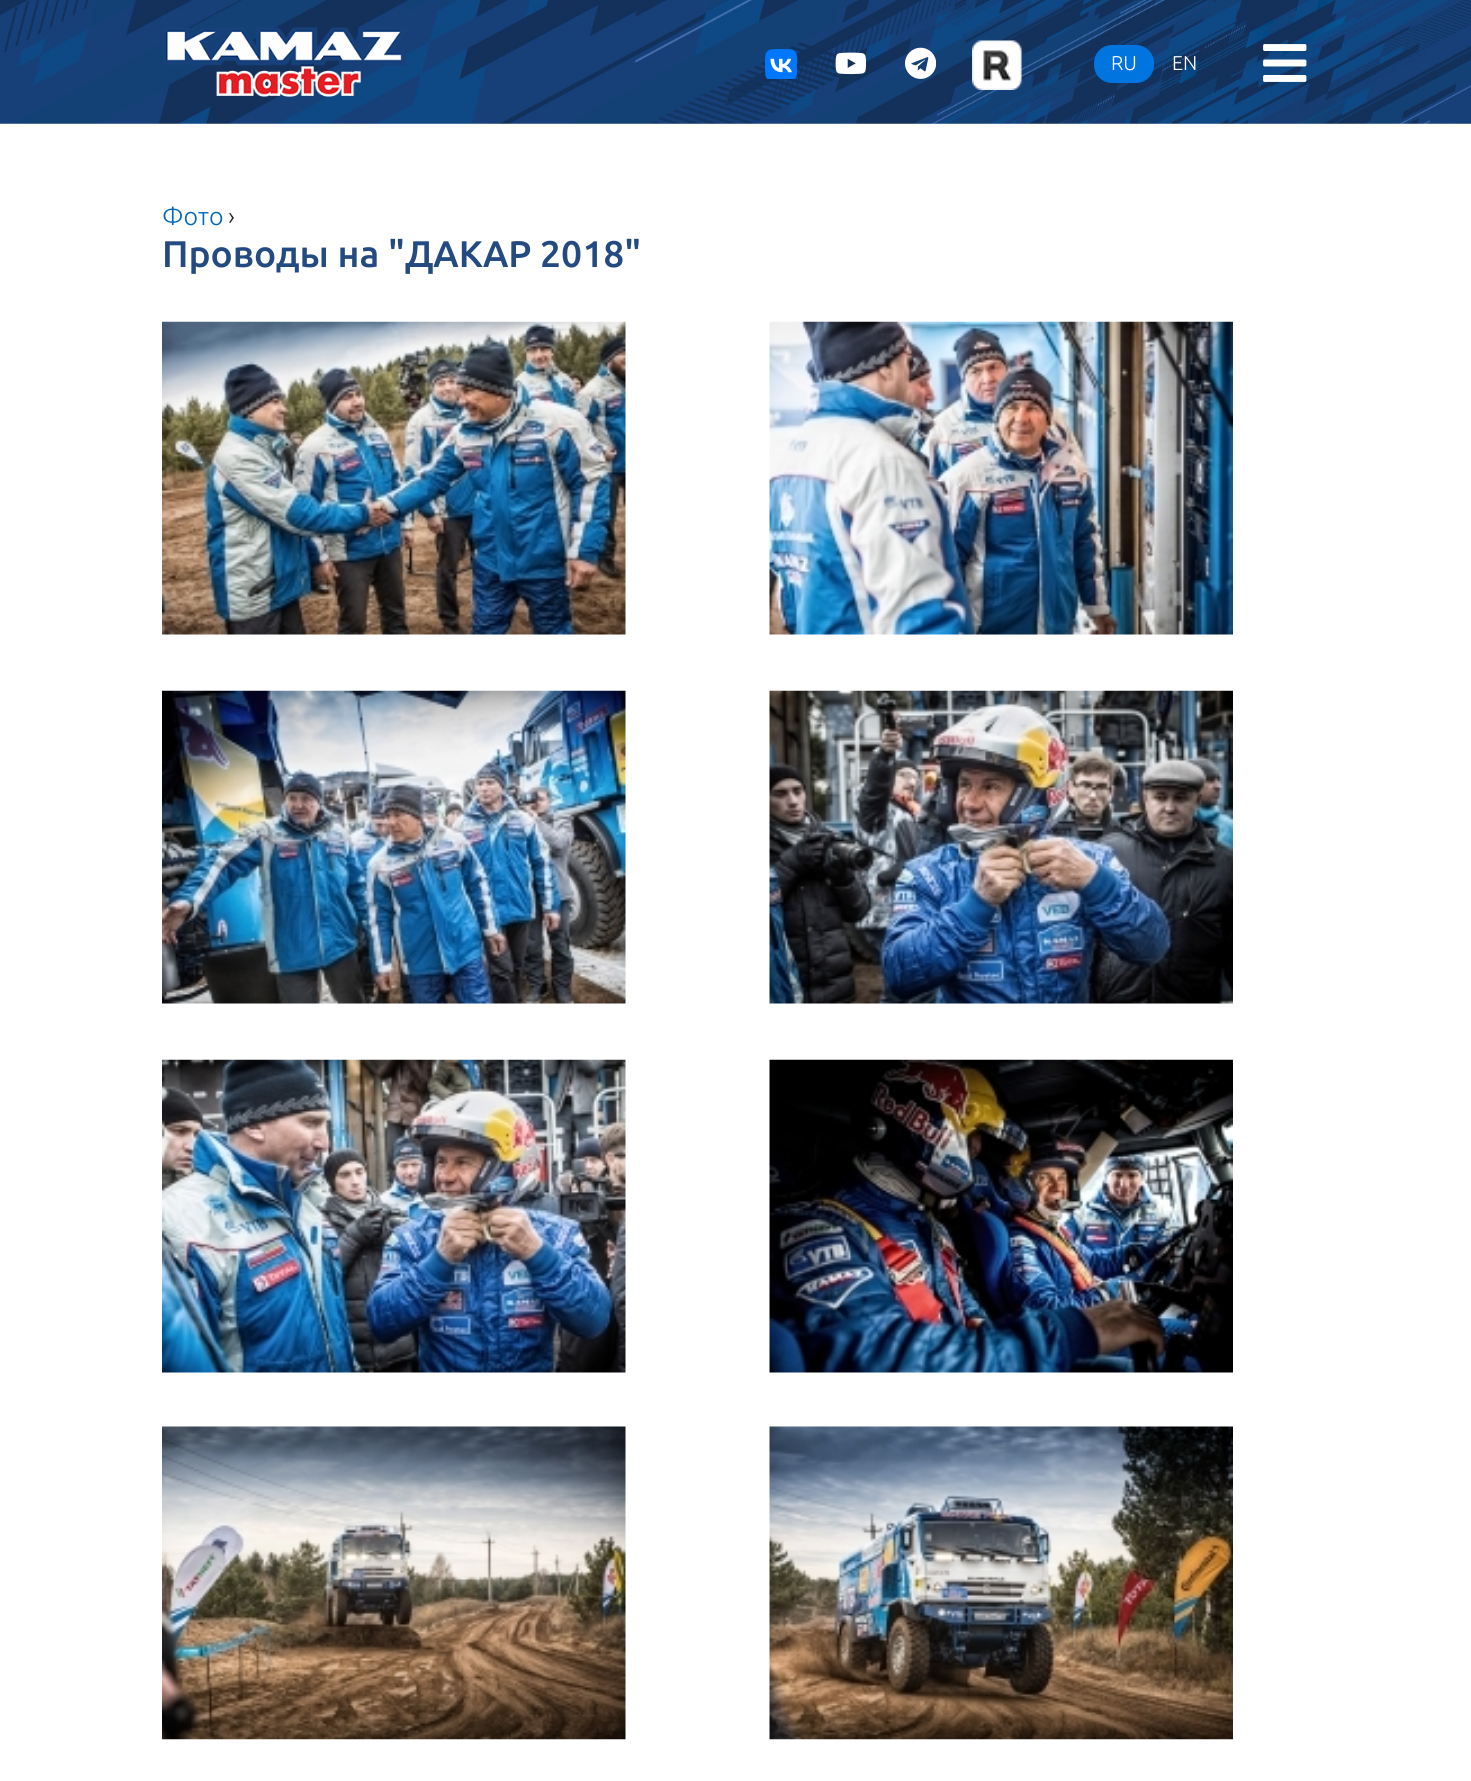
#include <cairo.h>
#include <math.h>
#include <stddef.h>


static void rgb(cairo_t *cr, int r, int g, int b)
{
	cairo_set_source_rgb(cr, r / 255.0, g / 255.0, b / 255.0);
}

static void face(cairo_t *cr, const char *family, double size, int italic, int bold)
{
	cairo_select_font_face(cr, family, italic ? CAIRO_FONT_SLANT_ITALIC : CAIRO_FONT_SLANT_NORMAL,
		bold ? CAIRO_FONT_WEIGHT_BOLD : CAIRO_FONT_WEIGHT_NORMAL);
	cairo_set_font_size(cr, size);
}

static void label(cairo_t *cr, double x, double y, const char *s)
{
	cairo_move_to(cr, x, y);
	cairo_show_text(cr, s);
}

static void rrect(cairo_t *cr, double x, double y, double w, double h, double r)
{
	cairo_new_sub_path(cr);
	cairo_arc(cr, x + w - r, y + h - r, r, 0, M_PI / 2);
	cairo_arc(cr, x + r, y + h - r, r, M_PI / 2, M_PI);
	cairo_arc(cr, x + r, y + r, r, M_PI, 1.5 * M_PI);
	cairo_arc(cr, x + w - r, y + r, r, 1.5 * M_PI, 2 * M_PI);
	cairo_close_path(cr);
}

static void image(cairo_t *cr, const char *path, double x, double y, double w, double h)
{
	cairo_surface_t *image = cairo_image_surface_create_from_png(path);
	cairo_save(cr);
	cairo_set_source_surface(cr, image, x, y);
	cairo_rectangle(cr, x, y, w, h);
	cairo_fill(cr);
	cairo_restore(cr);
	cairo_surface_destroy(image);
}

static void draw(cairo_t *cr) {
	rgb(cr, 255, 255, 255);
	cairo_paint(cr);
	image(cr, "image0.png", 0, 0, 1471, 124);
	image(cr, "image1.png", 163, 27, 247, 70);
	image(cr, "image2.png", 765, 49, 32, 30);
	image(cr, "image3.png", 835, 52, 31, 23);
	image(cr, "image4.png", 905, 47, 31, 32);
	image(cr, "image5.png", 972, 40, 50, 50);
	rgb(cr, 0, 116, 223);
	rrect(cr, 1094, 45, 60, 38, 18);
	cairo_fill(cr);
	face(cr, "Ubuntu Light", 20, 0, 0);
	rgb(cr, 255, 255, 255);
	label(cr, 1111, 70, "RU");
	label(cr, 1172, 70, "EN");
	image(cr, "image6.png", 1263, 44, 44, 38);
	face(cr, "Ubuntu Light", 25, 0, 0);
	rgb(cr, 1, 103, 187);
	label(cr, 162, 225, "Фото");
	rgb(cr, 33, 37, 41);
	label(cr, 228, 225, "›");
	face(cr, "Ubuntu Medium", 37.1, 0, 0);
	rgb(cr, 36, 75, 129);
	label(cr, 162, 267, "Проводы на \"ДАКАР 2018\"");
	image(cr, "image7.png", 162, 321, 464, 314);
	image(cr, "image8.png", 769, 321, 464, 314);
	image(cr, "image9.png", 162, 690, 464, 314);
	image(cr, "image10.png", 769, 690, 464, 314);
	image(cr, "image11.png", 162, 1059, 464, 314);
	image(cr, "image12.png", 769, 1059, 464, 314);
	image(cr, "image13.png", 162, 1426, 464, 314);
	image(cr, "image14.png", 769, 1426, 464, 314);
}

int main(void) {
	cairo_surface_t *surface = cairo_image_surface_create(CAIRO_FORMAT_RGB24, 1471, 1781);
	cairo_t *cr = cairo_create(surface);
	cairo_font_options_t *options = cairo_font_options_create();
	cairo_font_options_set_hint_metrics(options, CAIRO_HINT_METRICS_OFF);
	cairo_font_options_set_hint_style(options, CAIRO_HINT_STYLE_NONE);
	cairo_set_font_options(cr, options);
	cairo_set_miter_limit(cr, 4);
	draw(cr);
	cairo_surface_write_to_png(surface, "render.png");
	cairo_font_options_destroy(options);
	cairo_destroy(cr);
	cairo_surface_destroy(surface);
	return 0;
}
